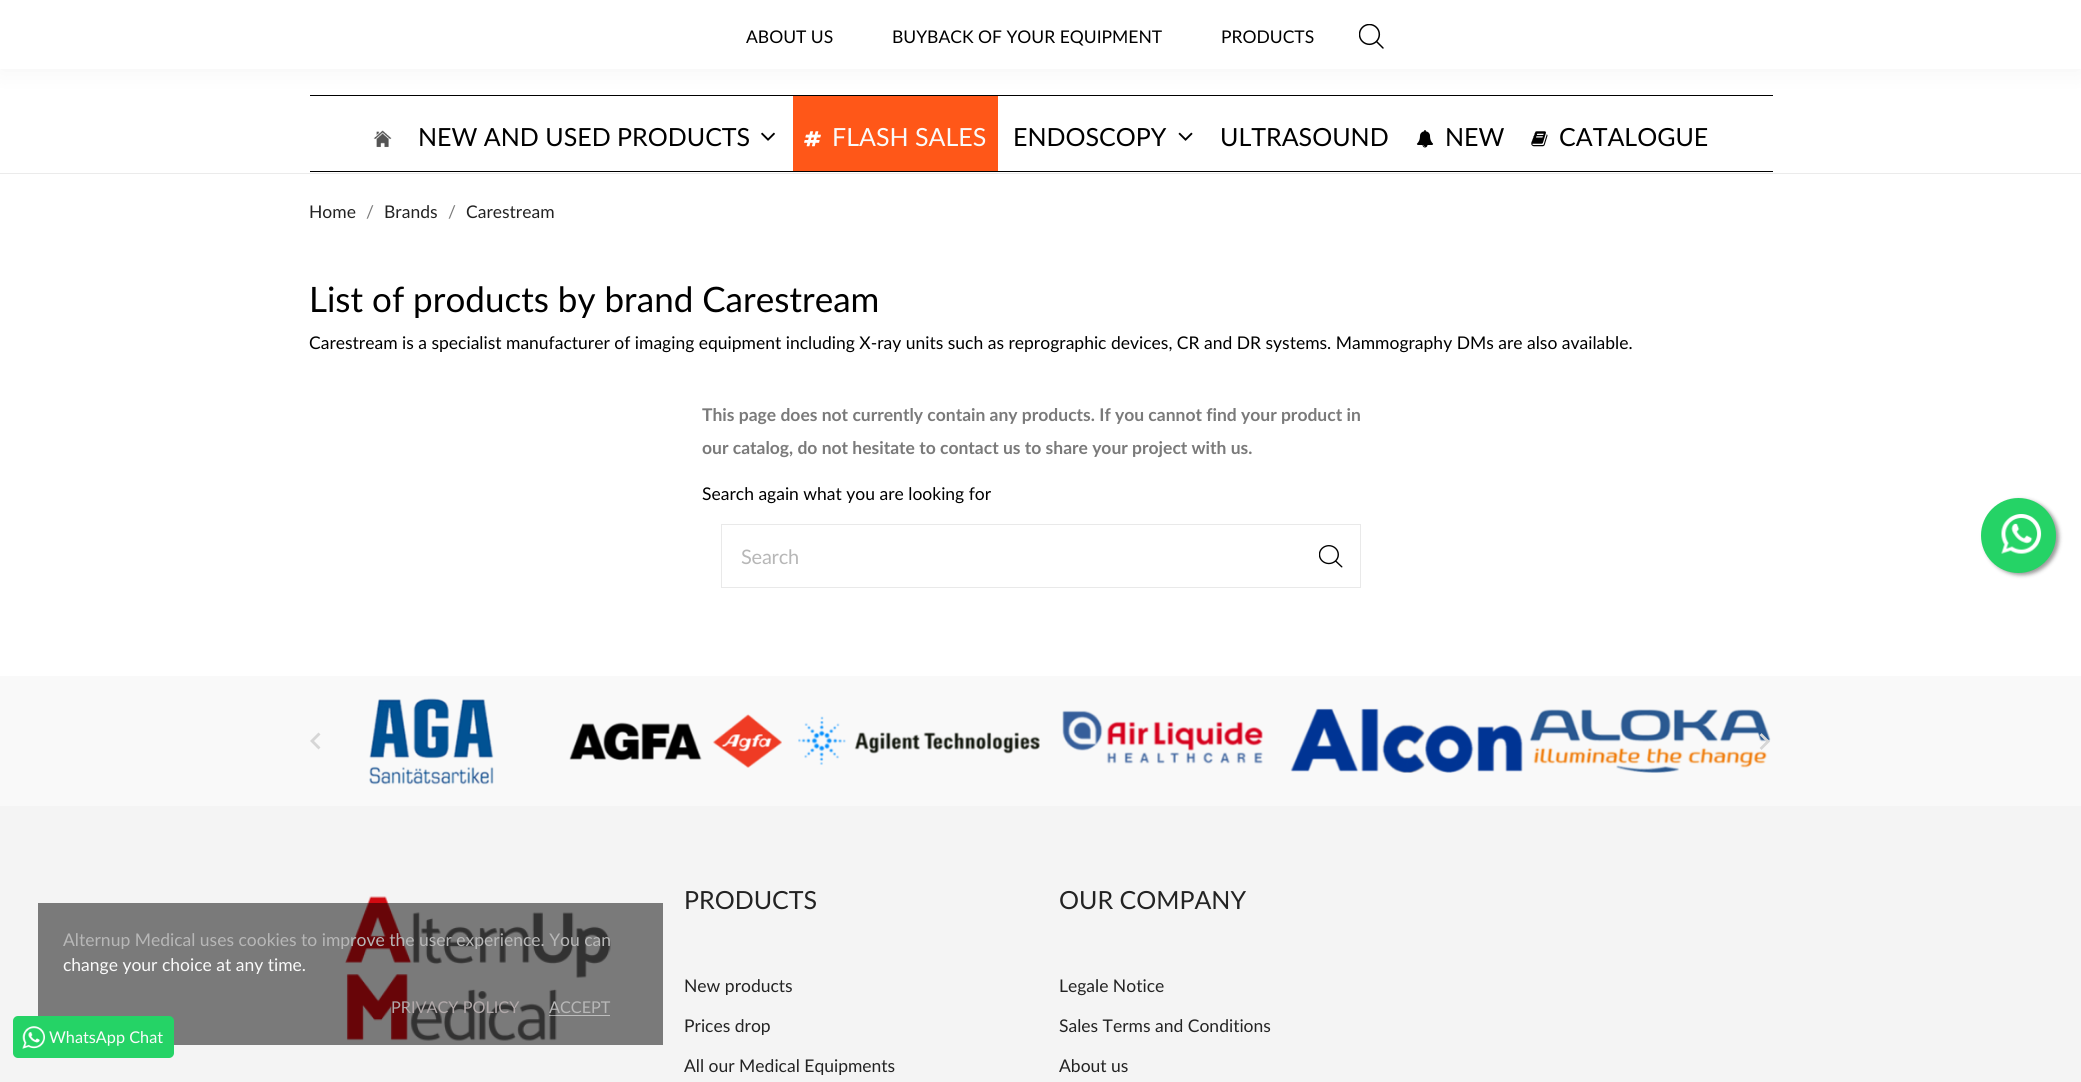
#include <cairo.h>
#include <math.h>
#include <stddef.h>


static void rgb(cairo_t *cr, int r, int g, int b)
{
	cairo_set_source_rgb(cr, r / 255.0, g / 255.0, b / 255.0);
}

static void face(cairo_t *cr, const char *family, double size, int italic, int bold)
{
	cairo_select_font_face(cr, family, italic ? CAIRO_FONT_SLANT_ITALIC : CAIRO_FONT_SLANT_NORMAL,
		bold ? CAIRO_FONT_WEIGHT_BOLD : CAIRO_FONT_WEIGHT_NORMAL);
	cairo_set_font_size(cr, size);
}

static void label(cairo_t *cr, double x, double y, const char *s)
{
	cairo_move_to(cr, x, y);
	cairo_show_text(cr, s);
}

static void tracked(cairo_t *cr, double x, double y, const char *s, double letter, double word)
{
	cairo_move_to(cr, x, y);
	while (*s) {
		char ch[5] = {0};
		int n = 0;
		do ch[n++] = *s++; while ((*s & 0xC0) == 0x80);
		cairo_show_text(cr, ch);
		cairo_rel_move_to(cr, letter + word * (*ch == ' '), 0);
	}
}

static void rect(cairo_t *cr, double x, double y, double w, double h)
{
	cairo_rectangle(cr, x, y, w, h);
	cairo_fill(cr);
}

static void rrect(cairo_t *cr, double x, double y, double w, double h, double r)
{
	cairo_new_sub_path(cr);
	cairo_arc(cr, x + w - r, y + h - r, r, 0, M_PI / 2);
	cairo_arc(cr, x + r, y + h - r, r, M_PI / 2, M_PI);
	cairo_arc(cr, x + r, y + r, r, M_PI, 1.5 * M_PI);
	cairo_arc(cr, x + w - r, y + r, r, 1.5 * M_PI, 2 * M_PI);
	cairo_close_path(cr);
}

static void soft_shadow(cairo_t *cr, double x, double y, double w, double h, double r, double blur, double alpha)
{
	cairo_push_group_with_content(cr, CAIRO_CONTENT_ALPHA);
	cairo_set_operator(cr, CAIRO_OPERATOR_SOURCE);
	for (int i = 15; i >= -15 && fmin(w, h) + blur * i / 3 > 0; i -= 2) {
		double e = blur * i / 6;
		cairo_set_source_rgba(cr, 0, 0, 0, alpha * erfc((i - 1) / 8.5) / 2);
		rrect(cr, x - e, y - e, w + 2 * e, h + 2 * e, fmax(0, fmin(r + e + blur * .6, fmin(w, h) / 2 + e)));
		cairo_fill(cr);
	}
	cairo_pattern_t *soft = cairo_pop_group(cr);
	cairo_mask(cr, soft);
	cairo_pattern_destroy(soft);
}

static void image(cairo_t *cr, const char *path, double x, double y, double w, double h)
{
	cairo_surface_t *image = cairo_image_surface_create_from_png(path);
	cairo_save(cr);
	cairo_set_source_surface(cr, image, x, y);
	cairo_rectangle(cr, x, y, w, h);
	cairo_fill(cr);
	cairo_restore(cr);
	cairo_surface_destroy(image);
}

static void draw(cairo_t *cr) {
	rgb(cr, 255, 255, 255);
	cairo_paint(cr);
	rgb(cr, 235, 235, 235);
	rect(cr, 0, 173, 2081, 1);
	rgb(cr, 0, 0, 0);
	rect(cr, 310, 95, 1463, 1);
	rgb(cr, 0, 0, 0);
	soft_shadow(cr, 0, 1, 2081, 69, 0, 12.5, 0.05);
	rgb(cr, 255, 255, 255);
	rect(cr, 0, 0, 2081, 69);
	face(cr, "Lato", 17.5, 0, 0);
	rgb(cr, 0, 0, 0);
	label(cr, 746, 43, "ABOUT US");
	label(cr, 892, 43, "BUYBACK OF YOUR EQUIPMENT");
	label(cr, 1221, 43, "PRODUCTS");
	image(cr, "image0.png", 1359, 24, 25, 25);
	rect(cr, 310, 171, 1463, 1);
	image(cr, "image1.png", 373, 130, 19, 18);
	face(cr, "Lato", 25, 0, 0);
	label(cr, 418, 146, "NEW AND USED PRODUCTS");
	image(cr, "image2.png", 761, 132, 14, 9);
	rgb(cr, 255, 87, 24);
	rect(cr, 793, 96, 205, 75);
	image(cr, "image3.png", 804, 131, 17, 16);
	rgb(cr, 250, 250, 250);
	label(cr, 832, 146, "FLASH SALES");
	rgb(cr, 0, 0, 0);
	label(cr, 1013, 146, "ENDOSCOPY");
	image(cr, "image4.png", 1178, 132, 15, 9);
	label(cr, 1220, 146, "ULTRASOUND");
	image(cr, "image5.png", 1416, 130, 18, 18);
	label(cr, 1445, 146, "NEW");
	image(cr, "image6.png", 1531, 131, 17, 16);
	label(cr, 1559, 146, "CATALOGUE");
	face(cr, "Lato", 17.5, 0, 0);
	rgb(cr, 35, 35, 35);
	label(cr, 309, 218, "Home");
	rgb(cr, 122, 122, 122);
	label(cr, 366, 218, "/");
	rgb(cr, 35, 35, 35);
	label(cr, 384, 218, "Brands");
	rgb(cr, 122, 122, 122);
	label(cr, 448, 218, "/");
	rgb(cr, 35, 35, 35);
	label(cr, 466, 218, "Carestream");
	face(cr, "Lato", 35, 0, 0);
	rgb(cr, 0, 0, 0);
	label(cr, 309, 312, "List of products by brand Carestream");
	face(cr, "Lato", 17.5, 0, 0);
	label(cr, 309, 349, "Carestream is a specialist manufacturer of imaging equipment including X-ray units such as reprographic devices, CR and DR systems. Mammography DMs are also available.");
	face(cr, "Lato", 17.5, 0, 1);
	rgb(cr, 122, 122, 122);
	label(cr, 702, 421, "This page does not currently contain any products. If you cannot find your product in");
	label(cr, 702, 454, "our catalog, do not hesitate to contact us to share your project with us.");
	face(cr, "Lato", 17.5, 0, 0);
	rgb(cr, 0, 0, 0);
	label(cr, 702, 500, "Search again what you are looking for");
	cairo_rectangle(cr, 721.5, 524.5, 639, 63);
	rgb(cr, 233, 233, 233);
	cairo_set_line_width(cr, 1);
	cairo_stroke(cr);
	face(cr, "Lato", 20, 0, 0);
	rgb(cr, 183, 183, 183);
	tracked(cr, 741, 564, "Search", -0.25, 0);
	image(cr, "image7.png", 1319, 545, 24, 23);
	rgb(cr, 249, 249, 249);
	rect(cr, 0, 676, 2081, 130);
	rgb(cr, 214, 214, 214);
	cairo_new_path(cr);
	cairo_move_to(cr, 320.5, 747.5);
	cairo_line_to(cr, 318.5, 749.5);
	cairo_line_to(cr, 310, 741);
	cairo_line_to(cr, 318.5, 732.5);
	cairo_line_to(cr, 320.5, 734.5);
	cairo_line_to(cr, 314, 741);
	cairo_close_path(cr);
	cairo_fill(cr);
	image(cr, "image8.png", 369, 698, 125, 87);
	image(cr, "image9.png", 569, 714, 213, 54);
	image(cr, "image10.png", 798, 716, 242, 49);
	image(cr, "image11.png", 1062, 710, 201, 54);
	image(cr, "image12.png", 1290, 708, 233, 65);
	image(cr, "image13.png", 1529, 709, 242, 64);
	image(cr, "image14.png", 1759, 733, 11, 17);
	rgb(cr, 244, 244, 244);
	rect(cr, 0, 806, 2081, 276);
	rgb(cr, 122, 122, 122);
	rect(cr, 38, 903, 625, 142);
	image(cr, "image15.png", 345, 896, 266, 145);
	face(cr, "Lato", 25, 0, 0);
	rgb(cr, 35, 35, 35);
	label(cr, 684, 909, "PRODUCTS");
	face(cr, "Lato", 17.5, 0, 0);
	label(cr, 684, 992, "New products");
	label(cr, 684, 1032, "Prices drop");
	label(cr, 684, 1072, "All our Medical Equipments");
	face(cr, "Lato", 25, 0, 0);
	label(cr, 1059, 909, "OUR COMPANY");
	face(cr, "Lato", 17.5, 0, 0);
	label(cr, 1059, 992, "Legale Notice");
	label(cr, 1059, 1032, "Sales Terms and Conditions");
	label(cr, 1059, 1072, "About us");
	rgb(cr, 153, 153, 153);
	soft_shadow(cr, 1984, 500, 75, 75, 37.5, 2, 1);
	rgb(cr, 37, 211, 102);
	cairo_arc(cr, 2018.5, 535.5, 37.5, 0, 2 * M_PI);
	cairo_fill(cr);
	image(cr, "image16.png", 2001, 514, 41, 40);
	rgb(cr, 183, 183, 183);
	label(cr, 63, 946, "Alternup Medical uses cookies to improve the user experience. You can");
	rgb(cr, 250, 250, 250);
	label(cr, 63, 971, "change your choice at any time.");
	face(cr, "Lato", 16.25, 0, 0);
	rgb(cr, 177, 169, 170);
	label(cr, 391, 1013, "PRIVACY POLICY");
	rgb(cr, 183, 183, 183);
	label(cr, 549, 1013, "ACCEPT");
	cairo_set_source_rgba(cr, 1, 1, 1, 0.5);
	rect(cr, 549, 1015, 61, 1);
	rgb(cr, 37, 211, 102);
	rrect(cr, 13, 1016, 161, 42, 5);
	cairo_fill(cr);
	image(cr, "image17.png", 22, 1026, 23, 23);
	rgb(cr, 250, 250, 250);
	label(cr, 49, 1043, "WhatsApp Chat");
}

int main(void) {
	cairo_surface_t *surface = cairo_image_surface_create(CAIRO_FORMAT_RGB24, 2081, 1082);
	cairo_t *cr = cairo_create(surface);
	cairo_font_options_t *options = cairo_font_options_create();
	cairo_font_options_set_hint_metrics(options, CAIRO_HINT_METRICS_OFF);
	cairo_font_options_set_hint_style(options, CAIRO_HINT_STYLE_NONE);
	cairo_set_font_options(cr, options);
	cairo_set_miter_limit(cr, 4);
	draw(cr);
	cairo_surface_write_to_png(surface, "render.png");
	cairo_font_options_destroy(options);
	cairo_destroy(cr);
	cairo_surface_destroy(surface);
	return 0;
}
